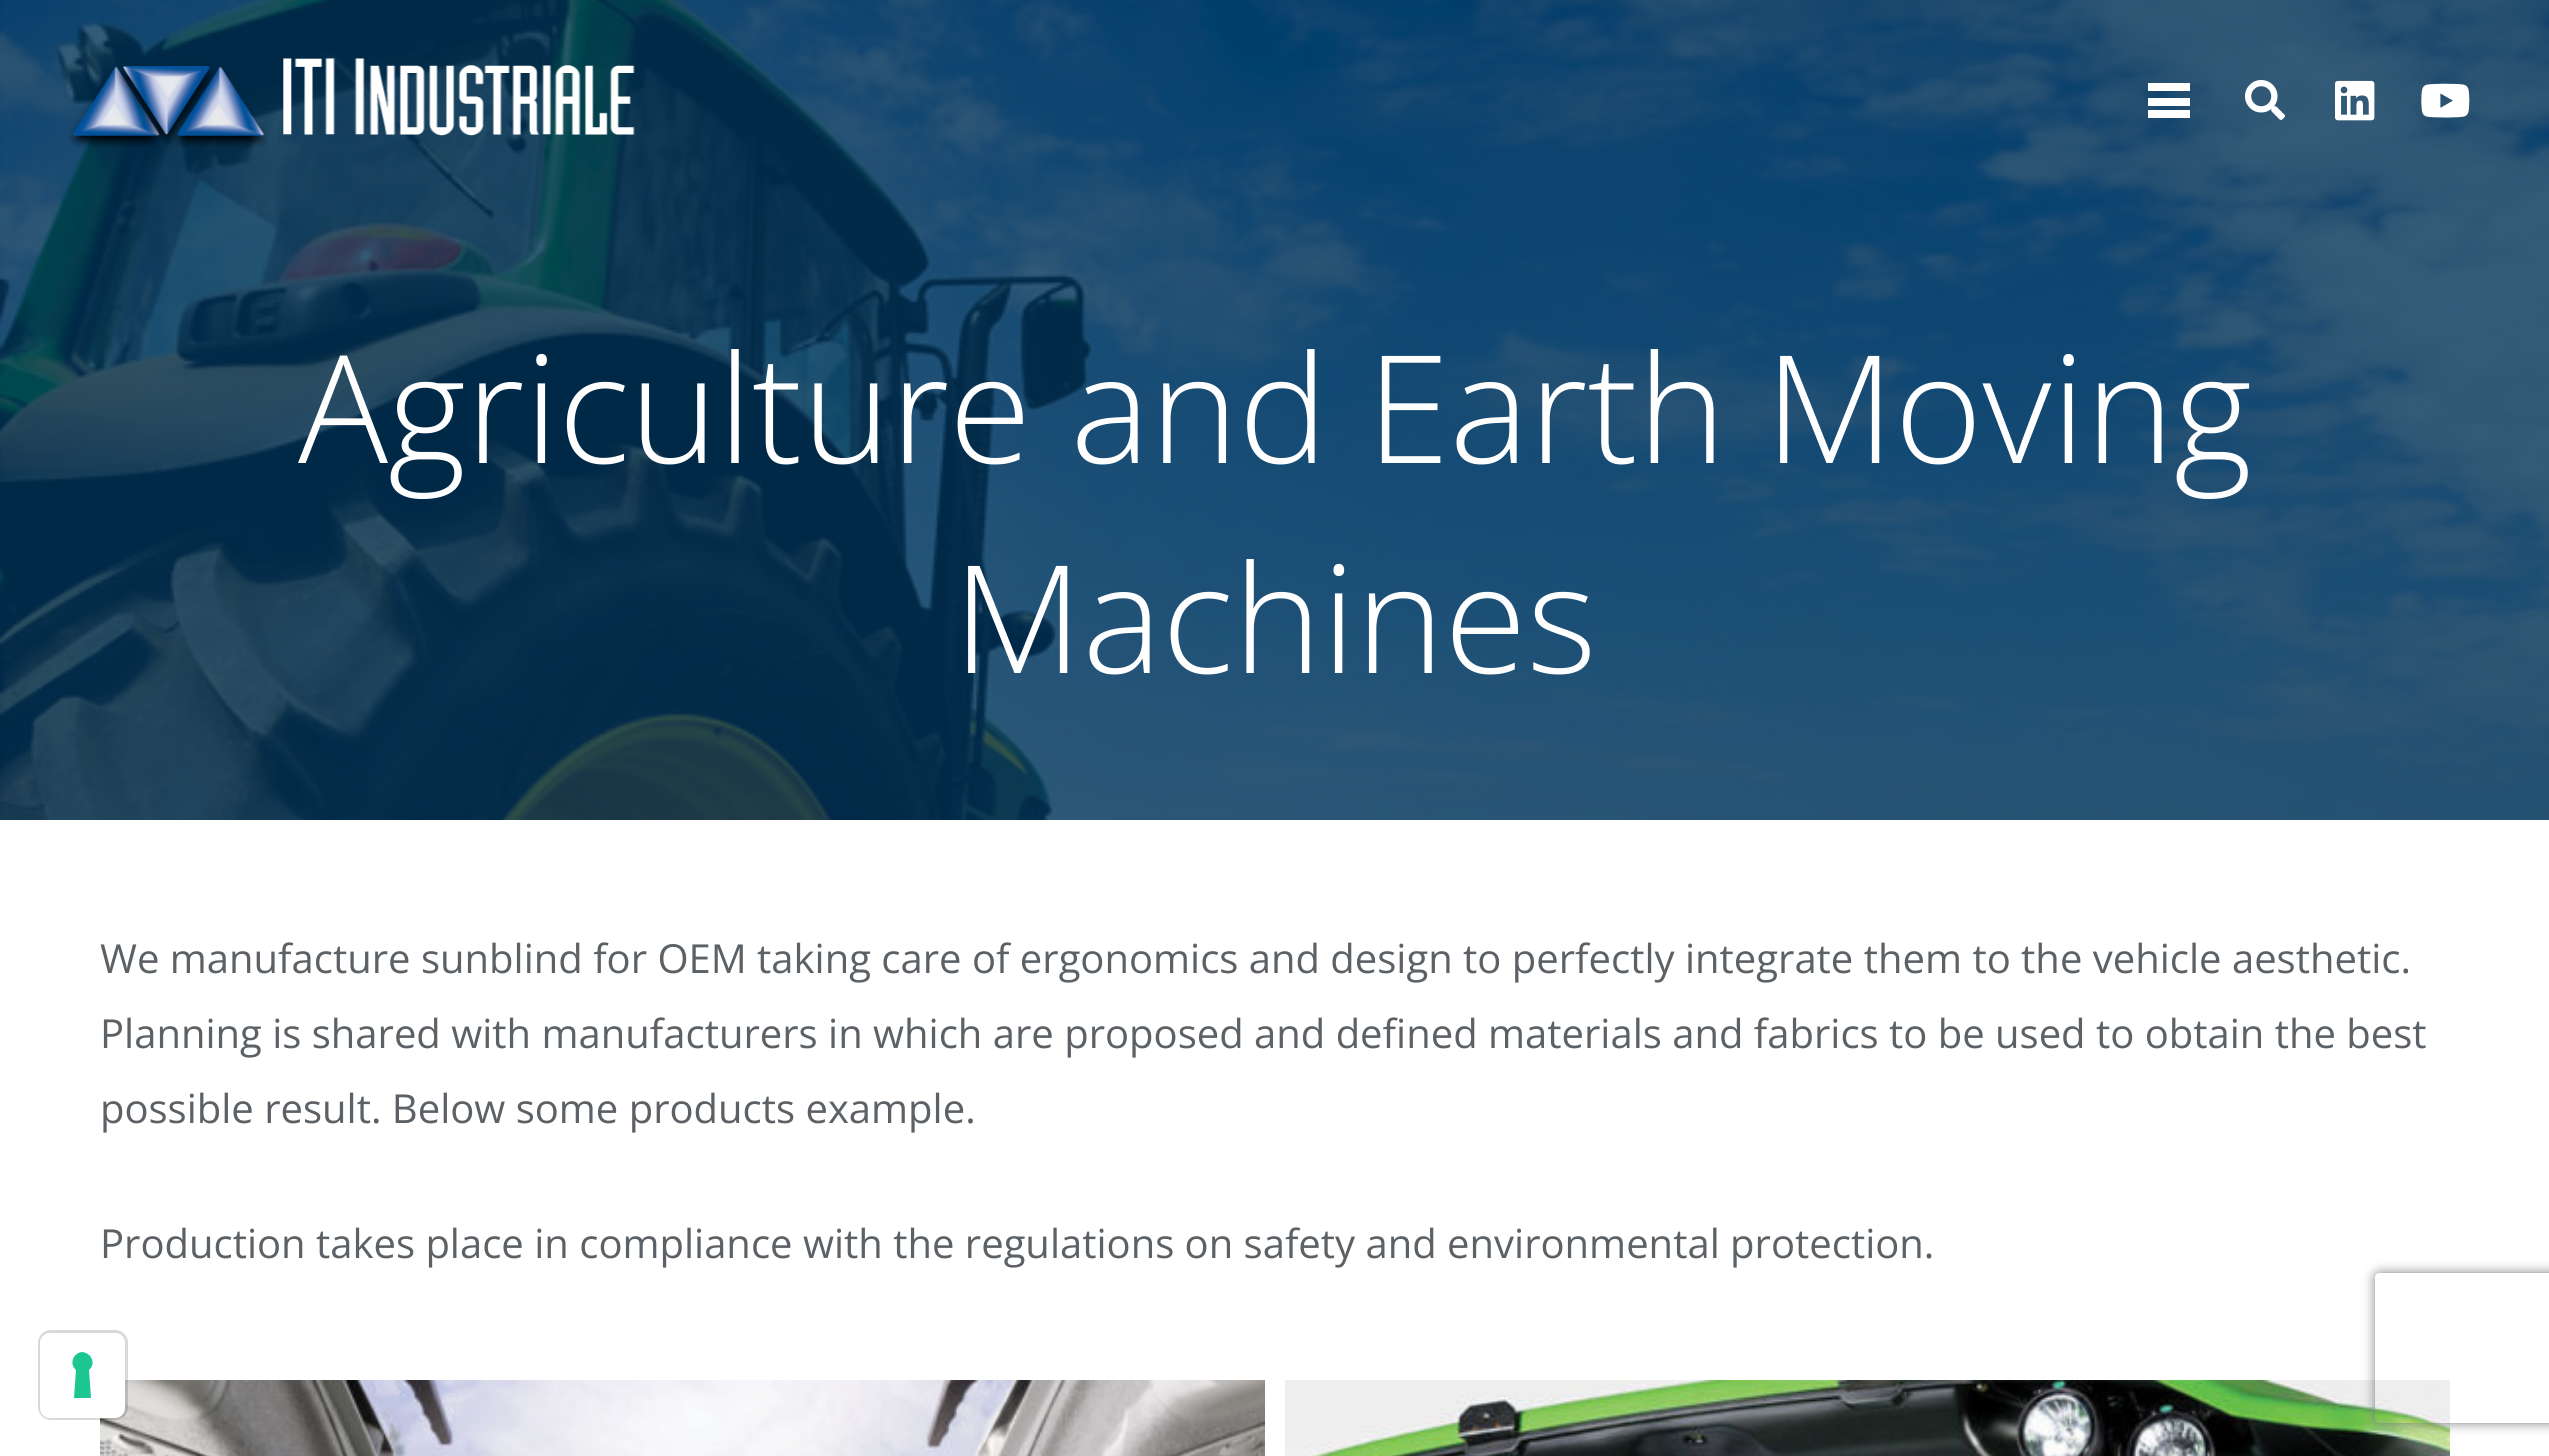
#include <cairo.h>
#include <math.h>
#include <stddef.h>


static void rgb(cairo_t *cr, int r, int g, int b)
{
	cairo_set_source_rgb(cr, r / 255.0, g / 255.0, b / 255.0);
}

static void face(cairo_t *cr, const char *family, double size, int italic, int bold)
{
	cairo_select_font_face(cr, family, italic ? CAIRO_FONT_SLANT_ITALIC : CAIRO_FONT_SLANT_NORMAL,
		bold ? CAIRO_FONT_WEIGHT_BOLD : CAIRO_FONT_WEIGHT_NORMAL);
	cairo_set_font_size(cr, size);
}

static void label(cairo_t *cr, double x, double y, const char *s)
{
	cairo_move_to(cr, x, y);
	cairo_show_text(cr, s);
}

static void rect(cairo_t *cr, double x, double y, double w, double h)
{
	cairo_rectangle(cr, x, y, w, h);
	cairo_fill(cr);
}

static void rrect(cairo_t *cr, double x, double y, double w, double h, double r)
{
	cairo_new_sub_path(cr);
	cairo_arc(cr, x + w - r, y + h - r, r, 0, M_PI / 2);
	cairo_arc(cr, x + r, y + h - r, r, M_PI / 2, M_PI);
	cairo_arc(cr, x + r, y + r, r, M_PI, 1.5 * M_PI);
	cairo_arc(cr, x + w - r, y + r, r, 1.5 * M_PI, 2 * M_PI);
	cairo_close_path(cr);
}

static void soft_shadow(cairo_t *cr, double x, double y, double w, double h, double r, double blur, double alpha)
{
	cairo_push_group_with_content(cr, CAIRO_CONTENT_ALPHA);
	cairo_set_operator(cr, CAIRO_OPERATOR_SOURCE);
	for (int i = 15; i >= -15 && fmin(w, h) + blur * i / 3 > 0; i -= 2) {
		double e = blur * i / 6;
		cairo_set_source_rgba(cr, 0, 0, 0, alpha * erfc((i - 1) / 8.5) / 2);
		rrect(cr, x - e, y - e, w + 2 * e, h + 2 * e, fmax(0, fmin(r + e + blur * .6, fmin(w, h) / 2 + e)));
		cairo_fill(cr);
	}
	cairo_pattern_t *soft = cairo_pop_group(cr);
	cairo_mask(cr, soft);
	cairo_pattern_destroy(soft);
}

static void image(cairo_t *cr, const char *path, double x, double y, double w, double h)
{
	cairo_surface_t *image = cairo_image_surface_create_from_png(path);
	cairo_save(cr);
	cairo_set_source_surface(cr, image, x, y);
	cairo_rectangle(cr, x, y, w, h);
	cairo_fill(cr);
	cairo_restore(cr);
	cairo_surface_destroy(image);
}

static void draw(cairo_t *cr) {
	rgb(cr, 255, 255, 255);
	cairo_paint(cr);
	image(cr, "image4.png", 0, 0, 2549, 820);
	image(cr, "image0.png", 68, 58, 567, 90);
	rgb(cr, 255, 255, 255);
	rect(cr, 2148, 98, 42, 8);
	rect(cr, 2148, 83, 42, 8);
	rect(cr, 2148, 110, 42, 8);
	image(cr, "image1.png", 2245, 80, 40, 40);
	image(cr, "image2.png", 2335, 80, 40, 41);
	image(cr, "image3.png", 2421, 83, 49, 35);
	face(cr, "Open Sans Light", 150, 0, 0);
	label(cr, 298, 463, "Agriculture and Earth Moving");
	label(cr, 953, 673, "Machines");
	face(cr, "Open Sans", 40, 0, 0);
	rgb(cr, 92, 97, 102);
	label(cr, 100, 973, "We manufacture sunblind for OEM taking care of ergonomics and design to perfectly integrate them to the vehicle aesthetic.");
	label(cr, 100, 1048, "Planning is shared with manufacturers in which are proposed and defined materials and fabrics to be used to obtain the best");
	label(cr, 100, 1123, "possible result. Below some products example.");
	label(cr, 100, 1258, "Production takes place in compliance with the regulations on safety and environmental protection.");
	image(cr, "image5.png", 100, 1380, 1165, 76);
	image(cr, "image6.png", 1285, 1380, 1165, 76);
	rrect(cr, 39.5, 1331.5, 87, 87, 11.5);
	cairo_set_source_rgba(cr, 0, 0, 0, 0.15);
	cairo_set_line_width(cr, 3);
	cairo_stroke(cr);
	rgb(cr, 255, 255, 255);
	rrect(cr, 40, 1333, 85, 85, 10);
	cairo_fill(cr);
	rgb(cr, 28, 198, 145);
	cairo_set_fill_rule(cr, CAIRO_FILL_RULE_EVEN_ODD);
	cairo_new_path(cr);
	cairo_move_to(cr, 82, 1352);
	cairo_curve_to(cr, 92, 1353, 96, 1364, 89, 1370);
	cairo_line_to(cr, 91, 1398);
	cairo_line_to(cr, 74, 1398);
	cairo_line_to(cr, 76, 1370);
	cairo_curve_to(cr, 69, 1364, 73, 1353, 82, 1352);
	cairo_close_path(cr);
	cairo_fill(cr);
	cairo_save(cr);
	cairo_new_path(cr);
	cairo_move_to(cr, 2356, 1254);
	cairo_line_to(cr, 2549, 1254);
	cairo_line_to(cr, 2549, 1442);
	cairo_line_to(cr, 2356, 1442);
	cairo_close_path(cr);
	cairo_move_to(cr, 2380, 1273);
	cairo_line_to(cr, 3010, 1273);
	cairo_curve_to(cr, 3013, 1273, 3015, 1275, 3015, 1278);
	cairo_line_to(cr, 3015, 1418);
	cairo_curve_to(cr, 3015, 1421, 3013, 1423, 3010, 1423);
	cairo_line_to(cr, 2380, 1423);
	cairo_curve_to(cr, 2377, 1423, 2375, 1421, 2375, 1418);
	cairo_line_to(cr, 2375, 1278);
	cairo_curve_to(cr, 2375, 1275, 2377, 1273, 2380, 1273);
	cairo_close_path(cr);
	cairo_clip(cr);
	rgb(cr, 128, 128, 128);
	soft_shadow(cr, 2375, 1273, 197, 150, 5, 6, 1);
	cairo_restore(cr);
}

int main(void) {
	cairo_surface_t *surface = cairo_image_surface_create(CAIRO_FORMAT_RGB24, 2549, 1456);
	cairo_t *cr = cairo_create(surface);
	cairo_font_options_t *options = cairo_font_options_create();
	cairo_font_options_set_hint_metrics(options, CAIRO_HINT_METRICS_OFF);
	cairo_font_options_set_hint_style(options, CAIRO_HINT_STYLE_NONE);
	cairo_set_font_options(cr, options);
	cairo_set_miter_limit(cr, 4);
	draw(cr);
	cairo_surface_write_to_png(surface, "render.png");
	cairo_font_options_destroy(options);
	cairo_destroy(cr);
	cairo_surface_destroy(surface);
	return 0;
}
